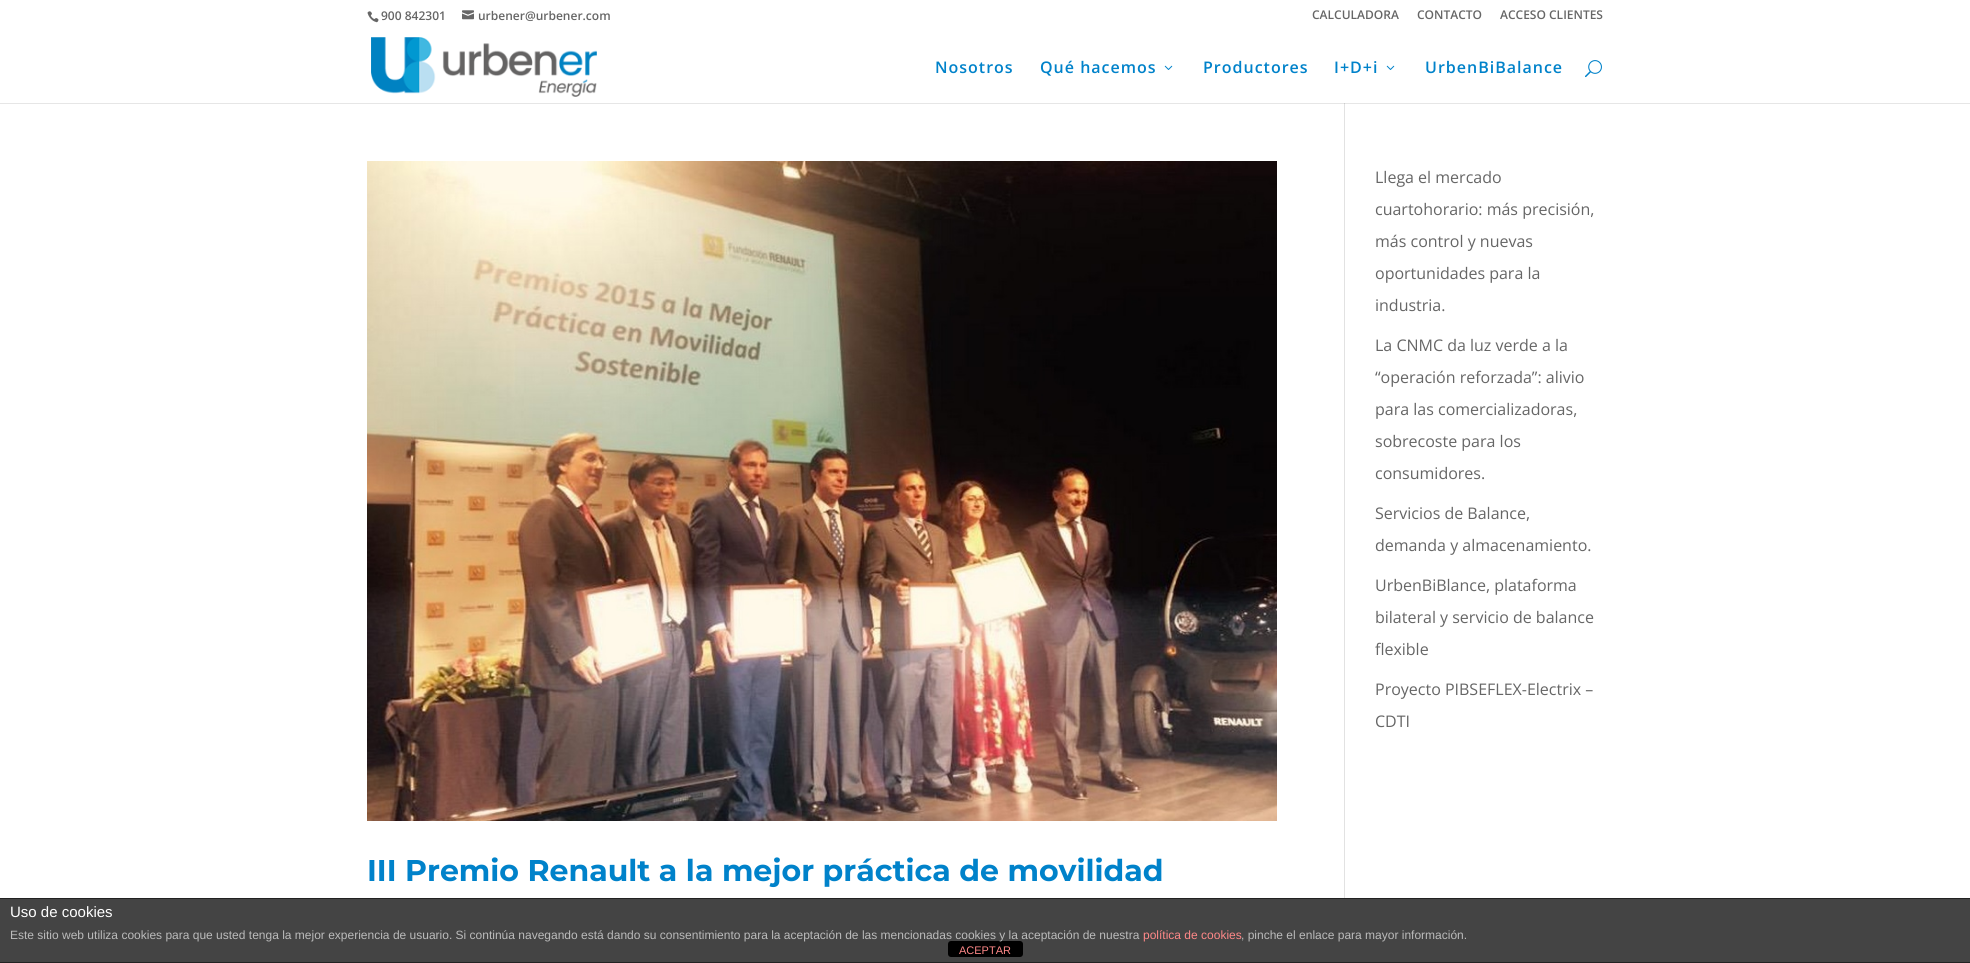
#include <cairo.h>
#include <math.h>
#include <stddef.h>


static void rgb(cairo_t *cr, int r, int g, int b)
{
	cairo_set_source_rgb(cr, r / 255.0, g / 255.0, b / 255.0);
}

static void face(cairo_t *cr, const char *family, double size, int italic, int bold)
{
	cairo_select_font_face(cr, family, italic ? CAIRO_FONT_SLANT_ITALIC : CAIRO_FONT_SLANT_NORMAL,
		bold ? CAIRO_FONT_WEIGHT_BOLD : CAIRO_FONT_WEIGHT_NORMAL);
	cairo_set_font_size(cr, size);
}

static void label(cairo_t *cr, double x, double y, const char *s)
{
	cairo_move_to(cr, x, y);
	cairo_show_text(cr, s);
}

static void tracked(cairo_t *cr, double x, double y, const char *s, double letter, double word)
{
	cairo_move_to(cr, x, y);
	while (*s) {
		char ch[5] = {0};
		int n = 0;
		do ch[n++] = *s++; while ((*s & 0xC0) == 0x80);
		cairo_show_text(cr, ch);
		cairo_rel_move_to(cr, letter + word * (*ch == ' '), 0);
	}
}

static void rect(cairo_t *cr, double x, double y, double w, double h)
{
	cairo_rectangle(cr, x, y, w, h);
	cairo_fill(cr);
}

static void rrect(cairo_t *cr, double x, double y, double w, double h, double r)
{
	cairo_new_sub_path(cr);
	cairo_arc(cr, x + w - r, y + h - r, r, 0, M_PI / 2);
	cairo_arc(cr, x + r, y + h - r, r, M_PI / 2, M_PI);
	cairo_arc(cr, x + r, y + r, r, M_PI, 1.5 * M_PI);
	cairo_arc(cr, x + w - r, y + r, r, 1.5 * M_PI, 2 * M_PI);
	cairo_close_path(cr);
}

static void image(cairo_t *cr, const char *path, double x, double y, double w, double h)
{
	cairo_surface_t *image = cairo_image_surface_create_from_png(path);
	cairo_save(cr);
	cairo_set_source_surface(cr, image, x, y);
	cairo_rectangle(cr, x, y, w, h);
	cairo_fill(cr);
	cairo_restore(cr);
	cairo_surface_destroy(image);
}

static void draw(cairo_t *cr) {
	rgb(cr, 255, 255, 255);
	cairo_paint(cr);
	rgb(cr, 230, 230, 230);
	rect(cr, 0, 103, 1970, 1);
	image(cr, "image0.png", 367, 11, 12, 12);
	face(cr, "Open Sans SemiBold", 12, 0, 0);
	rgb(cr, 102, 102, 102);
	label(cr, 381, 20, "900 842301");
	image(cr, "image1.png", 462, 10, 12, 10);
	label(cr, 478, 20, "urbener@urbener.com");
	label(cr, 1312, 19, "CALCULADORA");
	label(cr, 1417, 19, "CONTACTO");
	label(cr, 1500, 19, "ACCESO CLIENTES");
	image(cr, "image2.png", 371, 37, 226, 60);
	face(cr, "Open Sans SemiBold", 16, 0, 0);
	rgb(cr, 0, 130, 202);
	tracked(cr, 935, 73, "Nosotros", 1, 0);
	tracked(cr, 1040, 73, "Qué hacemos", 1, 0);
	image(cr, "image3.png", 1164, 65, 9, 5);
	tracked(cr, 1203, 73, "Productores", 1, 0);
	tracked(cr, 1334, 73, "I+D+i", 1, 0);
	image(cr, "image3.png", 1386, 65, 9, 5);
	tracked(cr, 1425, 73, "UrbenBiBalance", 1, 0);
	image(cr, "image4.png", 1585, 60, 17, 18);
	rgb(cr, 226, 226, 226);
	rect(cr, 1344, 103, 1, 795);
	rgb(cr, 203, 203, 203);
	rect(cr, 1344, 103, 1, 1);
	face(cr, "Open Sans", 16, 0, 0);
	rgb(cr, 102, 102, 102);
	label(cr, 1375, 183, "Llega el mercado");
	label(cr, 1375, 215, "cuartohorario: más precisión,");
	label(cr, 1375, 247, "más control y nuevas");
	label(cr, 1375, 279, "oportunidades para la");
	label(cr, 1375, 311, "industria.");
	label(cr, 1375, 351, "La CNMC da luz verde a la");
	label(cr, 1375, 383, "“operación reforzada”: alivio");
	label(cr, 1375, 415, "para las comercializadoras,");
	label(cr, 1375, 447, "sobrecoste para los");
	label(cr, 1375, 479, "consumidores.");
	label(cr, 1375, 519, "Servicios de Balance,");
	label(cr, 1375, 551, "demanda y almacenamiento.");
	label(cr, 1375, 591, "UrbenBiBlance, plataforma");
	label(cr, 1375, 623, "bilateral y servicio de balance");
	label(cr, 1375, 655, "flexible");
	label(cr, 1375, 695, "Proyecto PIBSEFLEX-Electrix –");
	label(cr, 1375, 727, "CDTI");
	image(cr, "image5.png", 367, 161, 910, 660);
	face(cr, "Montserrat", 30, 0, 1);
	rgb(cr, 0, 130, 202);
	label(cr, 367, 881, "III Premio Renault a la mejor práctica de movilidad");
	rgb(cr, 68, 68, 68);
	rect(cr, 0, 899, 1970, 63);
	rgb(cr, 34, 34, 34);
	rect(cr, 0, 898, 1970, 1);
	rect(cr, 0, 962, 1970, 1);
	face(cr, "Liberation Sans", 15, 0, 0);
	rgb(cr, 255, 255, 255);
	label(cr, 10, 917, "Uso de cookies");
	rgb(cr, 0, 0, 0);
	rrect(cr, 948, 941, 75, 16, 3);
	cairo_fill(cr);
	face(cr, "Liberation Sans", 12, 0, 0);
	rgb(cr, 187, 187, 187);
	label(cr, 10, 939, "Este sitio web utiliza cookies para que usted tenga la mejor experiencia de usuario. Si continúa navegando está dando su consentimiento para la aceptación de las mencionadas cookies y la aceptación de nuestra");
	rgb(cr, 255, 136, 136);
	label(cr, 1143, 939, "política de cookies");
	rgb(cr, 187, 187, 187);
	label(cr, 1241, 939, ", pinche el enlace para mayor información.");
	face(cr, "Liberation Sans", 11, 0, 0);
	rgb(cr, 255, 136, 136);
	label(cr, 959, 954, "ACEPTAR");
}

int main(void) {
	cairo_surface_t *surface = cairo_image_surface_create(CAIRO_FORMAT_RGB24, 1970, 963);
	cairo_t *cr = cairo_create(surface);
	cairo_font_options_t *options = cairo_font_options_create();
	cairo_font_options_set_hint_metrics(options, CAIRO_HINT_METRICS_OFF);
	cairo_font_options_set_hint_style(options, CAIRO_HINT_STYLE_NONE);
	cairo_set_font_options(cr, options);
	cairo_set_miter_limit(cr, 4);
	draw(cr);
	cairo_surface_write_to_png(surface, "render.png");
	cairo_font_options_destroy(options);
	cairo_destroy(cr);
	cairo_surface_destroy(surface);
	return 0;
}
